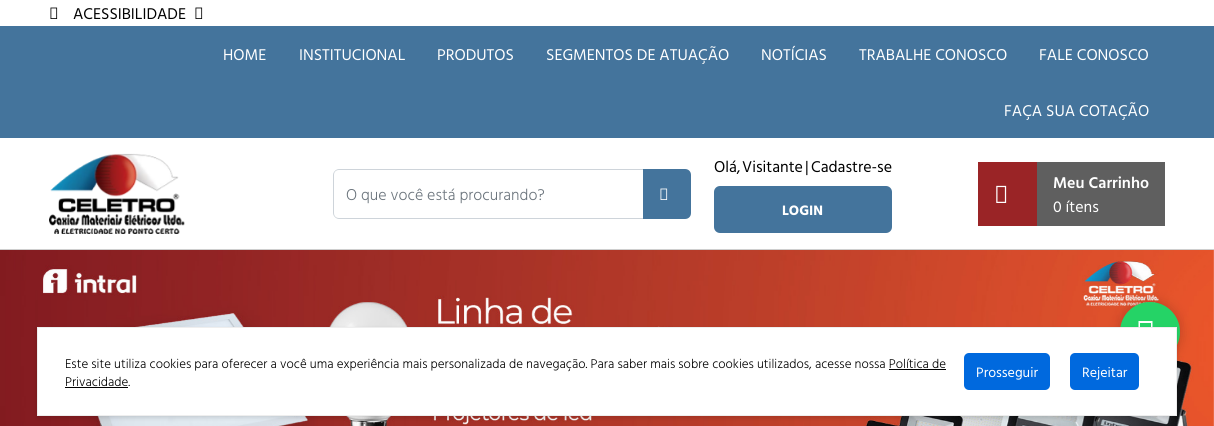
#include <cairo.h>
#include <math.h>
#include <stddef.h>


static void rgb(cairo_t *cr, int r, int g, int b)
{
	cairo_set_source_rgb(cr, r / 255.0, g / 255.0, b / 255.0);
}

static void face(cairo_t *cr, const char *family, double size, int italic, int bold)
{
	cairo_select_font_face(cr, family, italic ? CAIRO_FONT_SLANT_ITALIC : CAIRO_FONT_SLANT_NORMAL,
		bold ? CAIRO_FONT_WEIGHT_BOLD : CAIRO_FONT_WEIGHT_NORMAL);
	cairo_set_font_size(cr, size);
}

static void label(cairo_t *cr, double x, double y, const char *s)
{
	cairo_move_to(cr, x, y);
	cairo_show_text(cr, s);
}

static void rect(cairo_t *cr, double x, double y, double w, double h)
{
	cairo_rectangle(cr, x, y, w, h);
	cairo_fill(cr);
}

static void rrect(cairo_t *cr, double x, double y, double w, double h, double r)
{
	cairo_new_sub_path(cr);
	cairo_arc(cr, x + w - r, y + h - r, r, 0, M_PI / 2);
	cairo_arc(cr, x + r, y + h - r, r, M_PI / 2, M_PI);
	cairo_arc(cr, x + r, y + r, r, M_PI, 1.5 * M_PI);
	cairo_arc(cr, x + w - r, y + r, r, 1.5 * M_PI, 2 * M_PI);
	cairo_close_path(cr);
}

static void soft_shadow(cairo_t *cr, double x, double y, double w, double h, double r, double blur, double alpha)
{
	cairo_push_group_with_content(cr, CAIRO_CONTENT_ALPHA);
	cairo_set_operator(cr, CAIRO_OPERATOR_SOURCE);
	for (int i = 15; i >= -15 && fmin(w, h) + blur * i / 3 > 0; i -= 2) {
		double e = blur * i / 6;
		cairo_set_source_rgba(cr, 0, 0, 0, alpha * erfc((i - 1) / 8.5) / 2);
		rrect(cr, x - e, y - e, w + 2 * e, h + 2 * e, fmax(0, fmin(r + e + blur * .6, fmin(w, h) / 2 + e)));
		cairo_fill(cr);
	}
	cairo_pattern_t *soft = cairo_pop_group(cr);
	cairo_mask(cr, soft);
	cairo_pattern_destroy(soft);
}

static void image(cairo_t *cr, const char *path, double x, double y, double w, double h)
{
	cairo_surface_t *image = cairo_image_surface_create_from_png(path);
	cairo_save(cr);
	cairo_set_source_surface(cr, image, x, y);
	cairo_rectangle(cr, x, y, w, h);
	cairo_fill(cr);
	cairo_restore(cr);
	cairo_surface_destroy(image);
}

static void draw(cairo_t *cr) {
	rgb(cr, 255, 255, 255);
	cairo_paint(cr);
	image(cr, "image0.png", 50, 7, 8, 12);
	face(cr, "Hind Vadodara", 16, 0, 0);
	rgb(cr, 0, 0, 0);
	label(cr, 73, 19, "ACESSIBILIDADE");
	image(cr, "image0.png", 195, 7, 8, 12);
	rgb(cr, 68, 116, 156);
	rect(cr, 0, 26, 1214, 112);
	rgb(cr, 255, 255, 255);
	label(cr, 223, 60, "HOME");
	label(cr, 299, 60, "INSTITUCIONAL");
	label(cr, 437, 60, "PRODUTOS");
	label(cr, 546, 60, "SEGMENTOS DE ATUAÇÃO");
	label(cr, 761, 60, "NOTÍCIAS");
	label(cr, 859, 60, "TRABALHE CONOSCO");
	label(cr, 1039, 60, "FALE CONOSCO");
	label(cr, 1004, 116, "FAÇA SUA COTAÇÃO");
	rgb(cr, 206, 206, 206);
	rect(cr, 0, 249, 1214, 1);
	image(cr, "image1.png", 49, 153, 136, 81);
	rgb(cr, 206, 212, 218);
	cairo_set_fill_rule(cr, CAIRO_FILL_RULE_EVEN_ODD);
	cairo_new_path(cr);
	cairo_move_to(cr, 339, 169);
	cairo_line_to(cr, 644, 169);
	cairo_line_to(cr, 644, 219);
	cairo_line_to(cr, 339, 219);
	cairo_curve_to(cr, 336, 219, 333, 216, 333, 213);
	cairo_line_to(cr, 333, 175);
	cairo_curve_to(cr, 333, 172, 336, 169, 339, 169);
	cairo_close_path(cr);
	cairo_move_to(cr, 339, 170);
	cairo_line_to(cr, 644, 170);
	cairo_line_to(cr, 644, 218);
	cairo_line_to(cr, 339, 218);
	cairo_curve_to(cr, 336, 218, 334, 216, 334, 213);
	cairo_line_to(cr, 334, 175);
	cairo_curve_to(cr, 334, 172, 336, 170, 339, 170);
	cairo_close_path(cr);
	cairo_fill(cr);
	face(cr, "Hind Vadodara Light", 16, 0, 0);
	rgb(cr, 108, 117, 125);
	label(cr, 346, 200, "O que você está procurando?");
	rgb(cr, 68, 116, 156);
	cairo_new_path(cr);
	cairo_move_to(cr, 643, 169);
	cairo_line_to(cr, 685, 169);
	cairo_curve_to(cr, 688.5, 169, 691, 171.5, 691, 175);
	cairo_line_to(cr, 691, 213);
	cairo_curve_to(cr, 691, 216.5, 688.5, 219, 685, 219);
	cairo_line_to(cr, 643, 219);
	cairo_close_path(cr);
	cairo_fill(cr);
	image(cr, "image2.png", 660, 188, 8, 12);
	face(cr, "Hind Vadodara", 16, 0, 0);
	rgb(cr, 0, 0, 0);
	label(cr, 714, 172, "Olá,");
	label(cr, 742, 172, "Visitante");
	label(cr, 805, 172, "|");
	label(cr, 811, 172, "Cadastre-se");
	rgb(cr, 68, 116, 156);
	rrect(cr, 714, 186, 178, 47, 6);
	cairo_fill(cr);
	face(cr, "Hind Vadodara", 14, 0, 1);
	rgb(cr, 255, 255, 255);
	label(cr, 782, 215, "LOGIN");
	rgb(cr, 154, 36, 38);
	rect(cr, 978, 162, 59, 64);
	image(cr, "image3.png", 996, 185, 11, 18);
	rgb(cr, 95, 95, 95);
	rect(cr, 1037, 162, 128, 64);
	face(cr, "Hind Vadodara SemiBold", 16, 0, 0);
	rgb(cr, 255, 255, 255);
	label(cr, 1053, 188, "Meu Carrinho");
	face(cr, "Hind Vadodara", 16, 0, 0);
	label(cr, 1053, 212, "0 ítens");
	image(cr, "image4.png", 0, 250, 1214, 176);
	rgb(cr, 0, 0, 0);
	soft_shadow(cr, 1120, 302, 60, 60, 30, 6, 0.2);
	rgb(cr, 37, 211, 102);
	cairo_arc(cr, 1150, 332, 30, 0, 2 * M_PI);
	cairo_fill(cr);
	rgb(cr, 255, 255, 255);
	cairo_set_fill_rule(cr, CAIRO_FILL_RULE_WINDING);
	cairo_new_path(cr);
	cairo_move_to(cr, 1138.5, 346);
	cairo_line_to(cr, 1138.5, 321);
	cairo_line_to(cr, 1152.5, 321);
	cairo_line_to(cr, 1152.5, 346);
	cairo_close_path(cr);
	cairo_move_to(cr, 1140, 344);
	cairo_line_to(cr, 1151, 344);
	cairo_line_to(cr, 1151, 323);
	cairo_line_to(cr, 1140, 323);
	cairo_close_path(cr);
	cairo_fill(cr);
	rgb(cr, 0, 0, 0);
	soft_shadow(cr, 37, 329, 1140, 89, 0, 2, 0.13);
	rgb(cr, 255, 255, 255);
	cairo_rectangle(cr, 37.5, 327.5, 1139, 88);
	cairo_fill_preserve(cr);
	rgb(cr, 238, 238, 238);
	cairo_set_line_width(cr, 1);
	cairo_stroke(cr);
	face(cr, "Hind Vadodara Light", 13, 0, 0);
	rgb(cr, 0, 0, 0);
	label(cr, 65, 368, "Este site utiliza cookies para oferecer a você uma experiência mais personalizada de navegação. Para saber mais sobre cookies utilizados, acesse nossa Política de");
	label(cr, 65, 386, "Privacidade.");
	rect(cr, 889, 369, 57, 1);
	rect(cr, 65, 387, 63, 1);
	rgb(cr, 0, 105, 222);
	rrect(cr, 964, 353, 86, 37, 5);
	cairo_fill(cr);
	face(cr, "Hind Vadodara", 14, 0, 0);
	rgb(cr, 255, 255, 255);
	label(cr, 976, 377, "Prosseguir");
	rgb(cr, 0, 105, 222);
	rrect(cr, 1070, 353, 69, 37, 5);
	cairo_fill(cr);
	rgb(cr, 255, 255, 255);
	label(cr, 1082, 377, "Rejeitar");
}

int main(void) {
	cairo_surface_t *surface = cairo_image_surface_create(CAIRO_FORMAT_RGB24, 1214, 426);
	cairo_t *cr = cairo_create(surface);
	cairo_font_options_t *options = cairo_font_options_create();
	cairo_font_options_set_hint_metrics(options, CAIRO_HINT_METRICS_OFF);
	cairo_font_options_set_hint_style(options, CAIRO_HINT_STYLE_NONE);
	cairo_set_font_options(cr, options);
	cairo_set_miter_limit(cr, 4);
	draw(cr);
	cairo_surface_write_to_png(surface, "render.png");
	cairo_font_options_destroy(options);
	cairo_destroy(cr);
	cairo_surface_destroy(surface);
	return 0;
}
